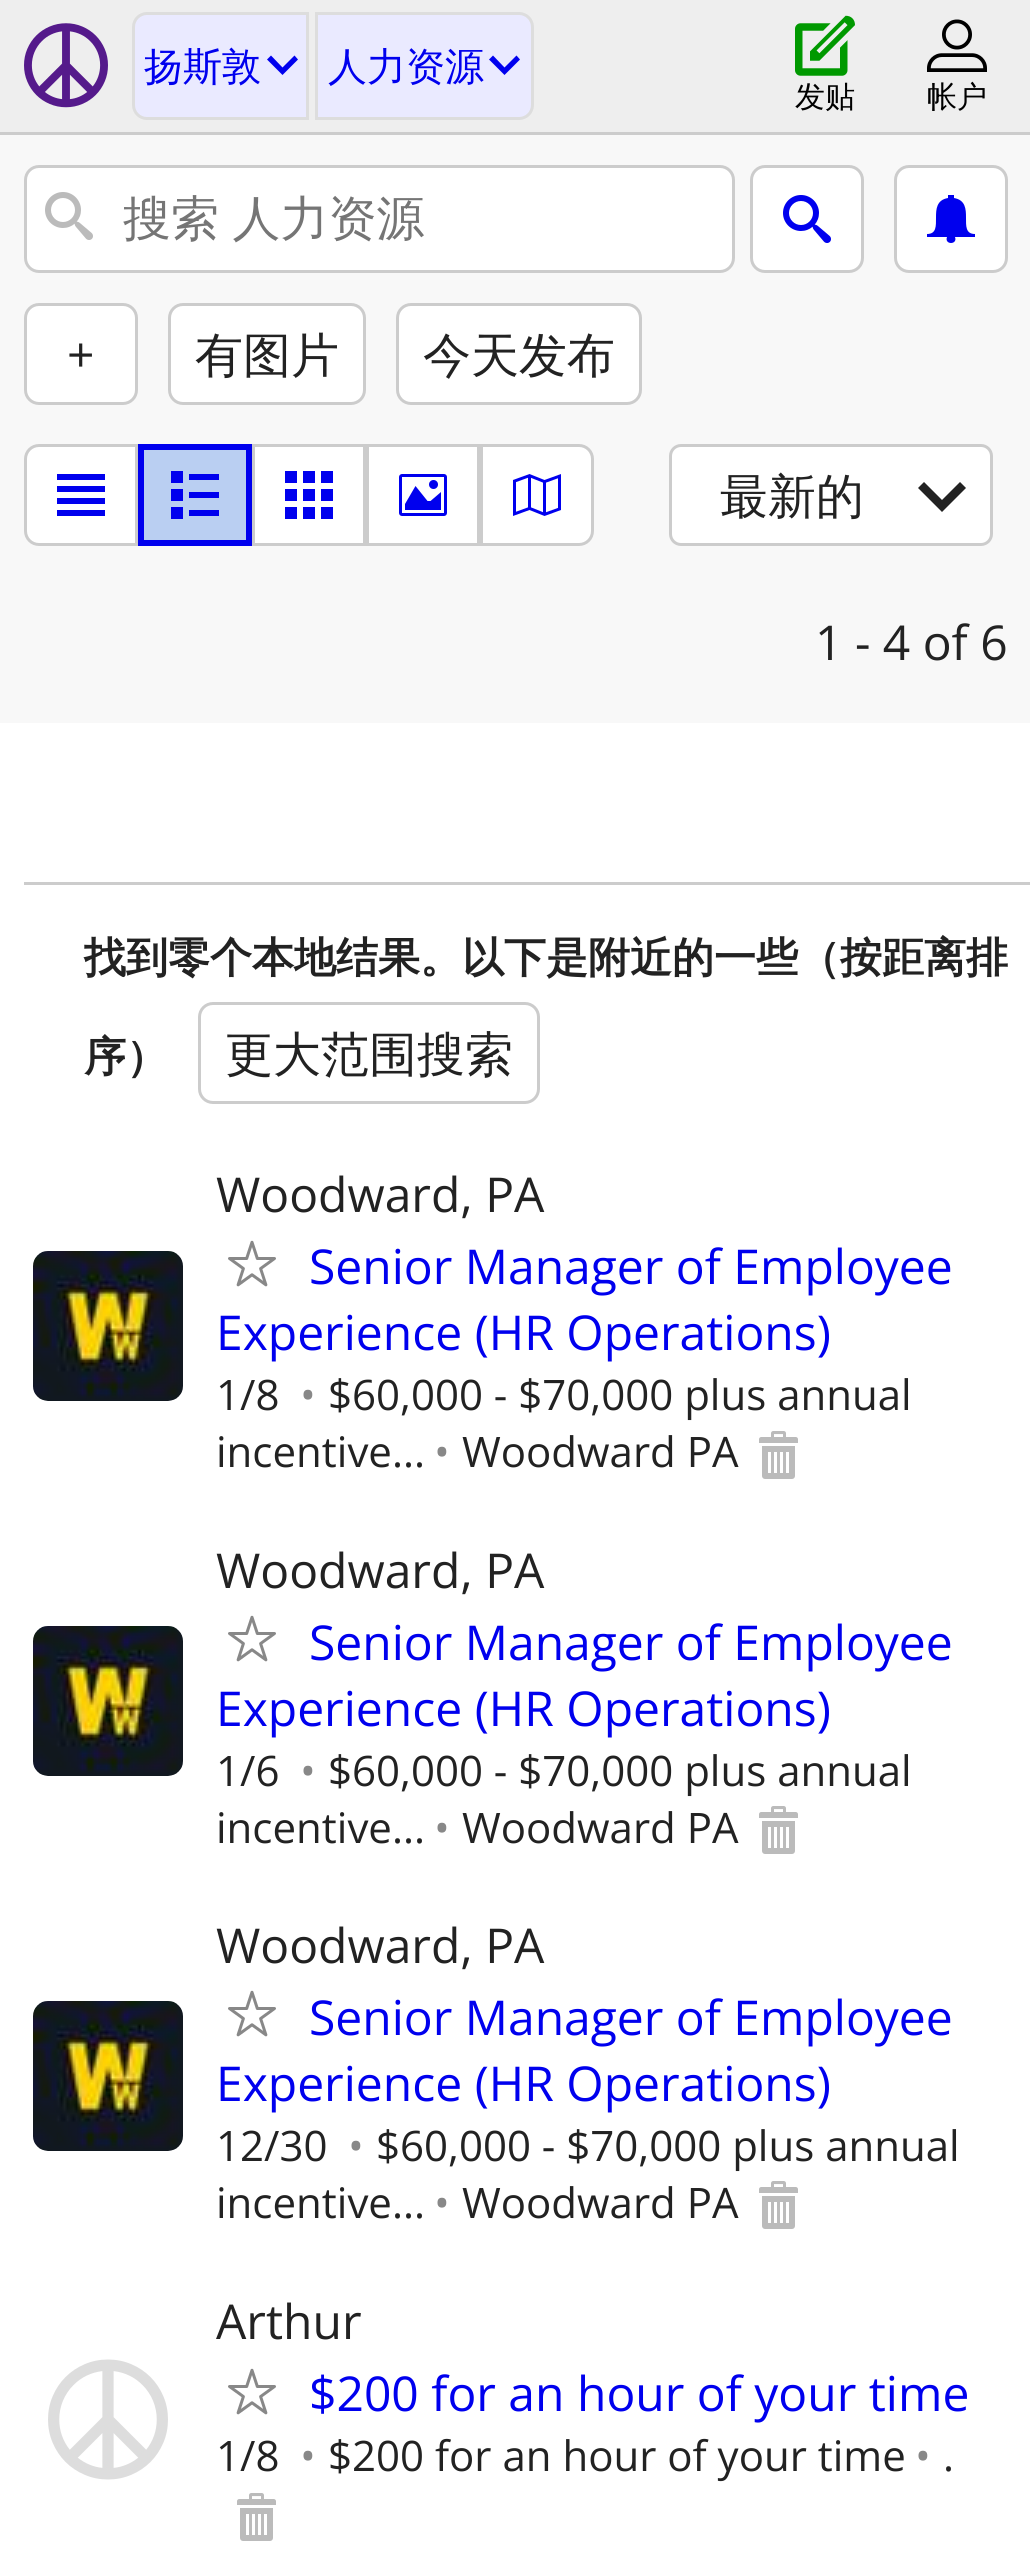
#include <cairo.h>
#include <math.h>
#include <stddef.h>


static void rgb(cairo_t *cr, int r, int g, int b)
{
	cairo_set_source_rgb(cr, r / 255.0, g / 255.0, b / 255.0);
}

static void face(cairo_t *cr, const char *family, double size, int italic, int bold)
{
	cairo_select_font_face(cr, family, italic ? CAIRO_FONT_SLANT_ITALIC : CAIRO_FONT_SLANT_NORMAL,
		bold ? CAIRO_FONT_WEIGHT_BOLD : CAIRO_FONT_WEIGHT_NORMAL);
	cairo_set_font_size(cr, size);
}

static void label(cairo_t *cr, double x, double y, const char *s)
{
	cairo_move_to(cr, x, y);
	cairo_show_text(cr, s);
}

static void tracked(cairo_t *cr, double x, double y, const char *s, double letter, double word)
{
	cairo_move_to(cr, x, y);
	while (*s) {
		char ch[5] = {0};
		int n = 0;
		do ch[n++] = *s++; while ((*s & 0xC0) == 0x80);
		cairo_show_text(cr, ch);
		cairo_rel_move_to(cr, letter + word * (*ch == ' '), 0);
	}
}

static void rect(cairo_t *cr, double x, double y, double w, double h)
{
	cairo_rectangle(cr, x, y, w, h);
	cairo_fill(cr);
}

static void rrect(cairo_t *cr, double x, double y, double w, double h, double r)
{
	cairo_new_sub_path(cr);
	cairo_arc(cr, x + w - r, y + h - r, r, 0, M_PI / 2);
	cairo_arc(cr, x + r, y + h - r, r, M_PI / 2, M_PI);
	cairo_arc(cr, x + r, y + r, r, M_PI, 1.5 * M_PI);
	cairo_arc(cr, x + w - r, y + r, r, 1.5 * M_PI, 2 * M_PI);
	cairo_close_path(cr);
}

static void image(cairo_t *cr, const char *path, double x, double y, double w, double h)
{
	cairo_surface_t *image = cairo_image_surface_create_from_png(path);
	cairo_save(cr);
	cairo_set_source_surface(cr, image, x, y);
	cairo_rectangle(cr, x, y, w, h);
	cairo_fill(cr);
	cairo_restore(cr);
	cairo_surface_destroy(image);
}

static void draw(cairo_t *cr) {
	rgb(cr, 255, 255, 255);
	cairo_paint(cr);
	rgb(cr, 238, 238, 238);
	rect(cr, 0, 0, 1030, 132);
	rgb(cr, 204, 204, 204);
	rect(cr, 0, 132, 1030, 3);
	image(cr, "image0.png", 24, 23, 84, 85);
	rgb(cr, 234, 234, 255);
	cairo_new_path(cr);
	cairo_move_to(cr, 147, 13.5);
	cairo_line_to(cr, 307.5, 13.5);
	cairo_line_to(cr, 307.5, 118.5);
	cairo_line_to(cr, 147, 118.5);
	cairo_curve_to(cr, 139.5, 118.5, 133.5, 112.5, 133.5, 105);
	cairo_line_to(cr, 133.5, 27);
	cairo_curve_to(cr, 133.5, 19.5, 139.5, 13.5, 147, 13.5);
	cairo_close_path(cr);
	cairo_fill_preserve(cr);
	rgb(cr, 221, 221, 221);
	cairo_set_line_width(cr, 3);
	cairo_stroke(cr);
	face(cr, "WenQuanYi Zen Hei Medium", 39, 0, 0);
	rgb(cr, 0, 0, 238);
	label(cr, 144, 80, "扬斯敦");
	cairo_new_path(cr);
	cairo_move_to(cr, 298, 59.5);
	cairo_line_to(cr, 294.5, 55.5);
	cairo_line_to(cr, 282.5, 67.5);
	cairo_line_to(cr, 271, 55.5);
	cairo_line_to(cr, 267, 59.5);
	cairo_line_to(cr, 282.5, 75);
	cairo_close_path(cr);
	cairo_fill(cr);
	rgb(cr, 234, 234, 255);
	cairo_new_path(cr);
	cairo_move_to(cr, 316.5, 13.5);
	cairo_line_to(cr, 519, 13.5);
	cairo_curve_to(cr, 526.5, 13.5, 532.5, 19.5, 532.5, 27);
	cairo_line_to(cr, 532.5, 105);
	cairo_curve_to(cr, 532.5, 112.5, 526.5, 118.5, 519, 118.5);
	cairo_line_to(cr, 316.5, 118.5);
	cairo_close_path(cr);
	cairo_fill_preserve(cr);
	rgb(cr, 221, 221, 221);
	cairo_stroke(cr);
	rgb(cr, 0, 0, 238);
	label(cr, 328, 80, "人力资源");
	cairo_new_path(cr);
	cairo_move_to(cr, 520, 59.5);
	cairo_line_to(cr, 516.5, 55.5);
	cairo_line_to(cr, 504.5, 67.5);
	cairo_line_to(cr, 493, 55.5);
	cairo_line_to(cr, 489, 59.5);
	cairo_line_to(cr, 504.5, 75);
	cairo_close_path(cr);
	cairo_fill(cr);
	image(cr, "image1.png", 795, 15, 60, 61);
	face(cr, "WenQuanYi Zen Hei Medium", 30, 0, 0);
	rgb(cr, 0, 0, 0);
	label(cr, 795, 107, "发贴");
	image(cr, "image2.png", 927, 19, 60, 53);
	label(cr, 927, 107, "帐户");
	rgb(cr, 248, 248, 248);
	rect(cr, 0, 135, 1030, 588);
	rgb(cr, 255, 255, 255);
	rrect(cr, 25.5, 166.5, 708, 105, 13.5);
	cairo_fill_preserve(cr);
	rgb(cr, 204, 204, 204);
	cairo_stroke(cr);
	image(cr, "image3.png", 45, 192, 48, 48);
	face(cr, "WenQuanYi Zen Hei Medium", 48, 0, 0);
	rgb(cr, 117, 117, 117);
	tracked(cr, 123, 235, "搜索 人力资源", 0, -1);
	rgb(cr, 255, 255, 255);
	rrect(cr, 751.5, 166.5, 111, 105, 13.5);
	cairo_fill_preserve(cr);
	rgb(cr, 204, 204, 204);
	cairo_stroke(cr);
	image(cr, "image4.png", 783, 195, 48, 48);
	rgb(cr, 255, 255, 255);
	rrect(cr, 895.5, 166.5, 111, 105, 13.5);
	cairo_fill_preserve(cr);
	rgb(cr, 204, 204, 204);
	cairo_stroke(cr);
	rgb(cr, 0, 0, 238);
	cairo_new_path(cr);
	cairo_move_to(cr, 975, 234);
	cairo_curve_to(cr, 956, 234, 977, 202, 954, 198);
	cairo_line_to(cr, 954, 195);
	cairo_line_to(cr, 948, 195);
	cairo_line_to(cr, 948, 198);
	cairo_curve_to(cr, 925, 202, 946, 234, 927, 234);
	cairo_line_to(cr, 927, 237);
	cairo_line_to(cr, 947, 237);
	cairo_curve_to(cr, 944, 245, 958, 245, 955, 237);
	cairo_line_to(cr, 975, 237);
	cairo_close_path(cr);
	cairo_fill(cr);
	rgb(cr, 255, 255, 255);
	rrect(cr, 25.5, 304.5, 111, 99, 13.5);
	cairo_fill_preserve(cr);
	rgb(cr, 204, 204, 204);
	cairo_stroke(cr);
	face(cr, "Open Sans", 48, 0, 0);
	rgb(cr, 34, 34, 34);
	label(cr, 67, 372, "+");
	rgb(cr, 255, 255, 255);
	rrect(cr, 169.5, 304.5, 195, 99, 13.5);
	cairo_fill_preserve(cr);
	rgb(cr, 204, 204, 204);
	cairo_stroke(cr);
	face(cr, "WenQuanYi Zen Hei Medium", 48, 0, 0);
	rgb(cr, 34, 34, 34);
	label(cr, 195, 372, "有图片");
	rgb(cr, 255, 255, 255);
	rrect(cr, 397.5, 304.5, 243, 99, 13.5);
	cairo_fill_preserve(cr);
	rgb(cr, 204, 204, 204);
	cairo_stroke(cr);
	rgb(cr, 34, 34, 34);
	label(cr, 423, 372, "今天发布");
	rgb(cr, 255, 255, 255);
	cairo_new_path(cr);
	cairo_move_to(cr, 39, 445.5);
	cairo_line_to(cr, 136.5, 445.5);
	cairo_line_to(cr, 136.5, 544.5);
	cairo_line_to(cr, 39, 544.5);
	cairo_curve_to(cr, 31.5, 544.5, 25.5, 538.5, 25.5, 531);
	cairo_line_to(cr, 25.5, 459);
	cairo_curve_to(cr, 25.5, 451.5, 31.5, 445.5, 39, 445.5);
	cairo_close_path(cr);
	cairo_fill_preserve(cr);
	rgb(cr, 204, 204, 204);
	cairo_stroke(cr);
	rgb(cr, 0, 0, 238);
	cairo_new_path(cr);
	cairo_move_to(cr, 57, 474);
	cairo_line_to(cr, 105, 474);
	cairo_line_to(cr, 105, 480);
	cairo_line_to(cr, 57, 480);
	cairo_close_path(cr);
	cairo_move_to(cr, 57, 498);
	cairo_line_to(cr, 105, 498);
	cairo_line_to(cr, 105, 504);
	cairo_line_to(cr, 57, 504);
	cairo_close_path(cr);
	cairo_move_to(cr, 57, 486);
	cairo_line_to(cr, 105, 486);
	cairo_line_to(cr, 105, 492);
	cairo_line_to(cr, 57, 492);
	cairo_close_path(cr);
	cairo_move_to(cr, 57, 510);
	cairo_line_to(cr, 105, 510);
	cairo_line_to(cr, 105, 516);
	cairo_line_to(cr, 57, 516);
	cairo_close_path(cr);
	cairo_fill(cr);
	rgb(cr, 186, 207, 242);
	cairo_rectangle(cr, 141, 447, 108, 96);
	cairo_fill_preserve(cr);
	rgb(cr, 0, 0, 238);
	cairo_set_line_width(cr, 6);
	cairo_stroke(cr);
	image(cr, "image5.png", 171, 471, 48, 48);
	rgb(cr, 255, 255, 255);
	cairo_rectangle(cr, 253.5, 445.5, 111, 99);
	cairo_fill_preserve(cr);
	rgb(cr, 204, 204, 204);
	cairo_set_line_width(cr, 3);
	cairo_stroke(cr);
	image(cr, "image6.png", 285, 471, 48, 48);
	rgb(cr, 255, 255, 255);
	cairo_rectangle(cr, 367.5, 445.5, 111, 99);
	cairo_fill_preserve(cr);
	rgb(cr, 204, 204, 204);
	cairo_stroke(cr);
	image(cr, "image7.png", 399, 474, 48, 42);
	rgb(cr, 255, 255, 255);
	cairo_new_path(cr);
	cairo_move_to(cr, 481.5, 445.5);
	cairo_line_to(cr, 579, 445.5);
	cairo_curve_to(cr, 586.5, 445.5, 592.5, 451.5, 592.5, 459);
	cairo_line_to(cr, 592.5, 531);
	cairo_curve_to(cr, 592.5, 538.5, 586.5, 544.5, 579, 544.5);
	cairo_line_to(cr, 481.5, 544.5);
	cairo_close_path(cr);
	cairo_fill_preserve(cr);
	rgb(cr, 204, 204, 204);
	cairo_stroke(cr);
	image(cr, "image8.png", 513, 474, 48, 42);
	rgb(cr, 255, 255, 255);
	rrect(cr, 670.5, 445.5, 321, 99, 10.5);
	cairo_fill_preserve(cr);
	rgb(cr, 204, 204, 204);
	cairo_stroke(cr);
	rgb(cr, 34, 34, 34);
	label(cr, 720, 513, "最新的");
	cairo_new_path(cr);
	cairo_move_to(cr, 966, 488);
	cairo_line_to(cr, 960, 482);
	cairo_line_to(cr, 942, 500);
	cairo_line_to(cr, 924, 482);
	cairo_line_to(cr, 918, 488);
	cairo_line_to(cr, 942, 512);
	cairo_close_path(cr);
	cairo_fill(cr);
	face(cr, "Open Sans", 48, 0, 0);
	label(cr, 815, 660, "1 - 4 of 6");
	rgb(cr, 204, 204, 204);
	rect(cr, 24, 882, 1006, 3);
	face(cr, "WenQuanYi Zen Hei", 42, 0, 1);
	rgb(cr, 34, 34, 34);
	label(cr, 84, 972, "找到零个本地结果。以下是附近的一些（按距离排");
	label(cr, 84, 1071, "序）");
	rrect(cr, 199.5, 1003.5, 339, 99, 13.5);
	rgb(cr, 204, 204, 204);
	cairo_stroke(cr);
	face(cr, "WenQuanYi Zen Hei Medium", 48, 0, 0);
	rgb(cr, 34, 34, 34);
	label(cr, 225, 1071, "更大范围搜索");
	image(cr, "image9.png", 33, 1251, 150, 150);
	face(cr, "Open Sans", 48, 0, 0);
	label(cr, 216, 1212, "Woodward, PA");
	image(cr, "image10.png", 228, 1240, 48, 47);
	rgb(cr, 0, 0, 238);
	label(cr, 309, 1284, "Senior Manager of Employee");
	label(cr, 216, 1350, "Experience (HR Operations)");
	face(cr, "Open Sans", 42, 0, 0);
	rgb(cr, 34, 34, 34);
	label(cr, 216, 1410, "1/8");
	rgb(cr, 136, 136, 136);
	label(cr, 300, 1410, "•");
	rgb(cr, 34, 34, 34);
	label(cr, 328, 1410, "$60,000 - $70,000 plus annual");
	label(cr, 216, 1467, "incentive...");
	rgb(cr, 136, 136, 136);
	label(cr, 434, 1467, "•");
	rgb(cr, 34, 34, 34);
	label(cr, 462, 1467, "Woodward PA");
	image(cr, "image11.png", 759, 1431, 39, 48);
	image(cr, "image9.png", 33, 1626, 150, 150);
	face(cr, "Open Sans", 48, 0, 0);
	label(cr, 216, 1588, "Woodward, PA");
	image(cr, "image10.png", 228, 1615, 48, 47);
	rgb(cr, 0, 0, 238);
	label(cr, 309, 1660, "Senior Manager of Employee");
	label(cr, 216, 1726, "Experience (HR Operations)");
	face(cr, "Open Sans", 42, 0, 0);
	rgb(cr, 34, 34, 34);
	label(cr, 216, 1786, "1/6");
	rgb(cr, 136, 136, 136);
	label(cr, 300, 1786, "•");
	rgb(cr, 34, 34, 34);
	label(cr, 328, 1786, "$60,000 - $70,000 plus annual");
	label(cr, 216, 1843, "incentive...");
	rgb(cr, 136, 136, 136);
	label(cr, 434, 1843, "•");
	rgb(cr, 34, 34, 34);
	label(cr, 462, 1843, "Woodward PA");
	image(cr, "image11.png", 759, 1806, 39, 48);
	image(cr, "image9.png", 33, 2001, 150, 150);
	face(cr, "Open Sans", 48, 0, 0);
	label(cr, 216, 1963, "Woodward, PA");
	image(cr, "image10.png", 228, 1990, 48, 47);
	rgb(cr, 0, 0, 238);
	label(cr, 309, 2035, "Senior Manager of Employee");
	label(cr, 216, 2101, "Experience (HR Operations)");
	face(cr, "Open Sans", 42, 0, 0);
	rgb(cr, 34, 34, 34);
	label(cr, 216, 2161, "12/30");
	rgb(cr, 136, 136, 136);
	label(cr, 348, 2161, "•");
	rgb(cr, 34, 34, 34);
	label(cr, 376, 2161, "$60,000 - $70,000 plus annual");
	label(cr, 216, 2218, "incentive...");
	rgb(cr, 136, 136, 136);
	label(cr, 434, 2218, "•");
	rgb(cr, 34, 34, 34);
	label(cr, 462, 2218, "Woodward PA");
	image(cr, "image11.png", 759, 2181, 39, 48);
	image(cr, "image12.png", 48, 2359, 120, 121);
	face(cr, "Open Sans", 48, 0, 0);
	label(cr, 216, 2339, "Arthur");
	image(cr, "image10.png", 228, 2368, 48, 47);
	rgb(cr, 0, 0, 238);
	label(cr, 309, 2411, "$200 for an hour of your time");
	face(cr, "Open Sans", 42, 0, 0);
	rgb(cr, 34, 34, 34);
	label(cr, 216, 2471, "1/8");
	rgb(cr, 136, 136, 136);
	label(cr, 300, 2471, "•");
	rgb(cr, 34, 34, 34);
	label(cr, 328, 2471, "$200 for an hour of your time");
	rgb(cr, 136, 136, 136);
	label(cr, 915, 2471, "•");
	rgb(cr, 34, 34, 34);
	label(cr, 943, 2471, ".");
	image(cr, "image11.png", 237, 2493, 39, 48);
}

int main(void) {
	cairo_surface_t *surface = cairo_image_surface_create(CAIRO_FORMAT_RGB24, 1030, 2563);
	cairo_t *cr = cairo_create(surface);
	cairo_font_options_t *options = cairo_font_options_create();
	cairo_font_options_set_hint_metrics(options, CAIRO_HINT_METRICS_OFF);
	cairo_font_options_set_hint_style(options, CAIRO_HINT_STYLE_NONE);
	cairo_set_font_options(cr, options);
	cairo_set_miter_limit(cr, 4);
	draw(cr);
	cairo_surface_write_to_png(surface, "render.png");
	cairo_font_options_destroy(options);
	cairo_destroy(cr);
	cairo_surface_destroy(surface);
	return 0;
}
